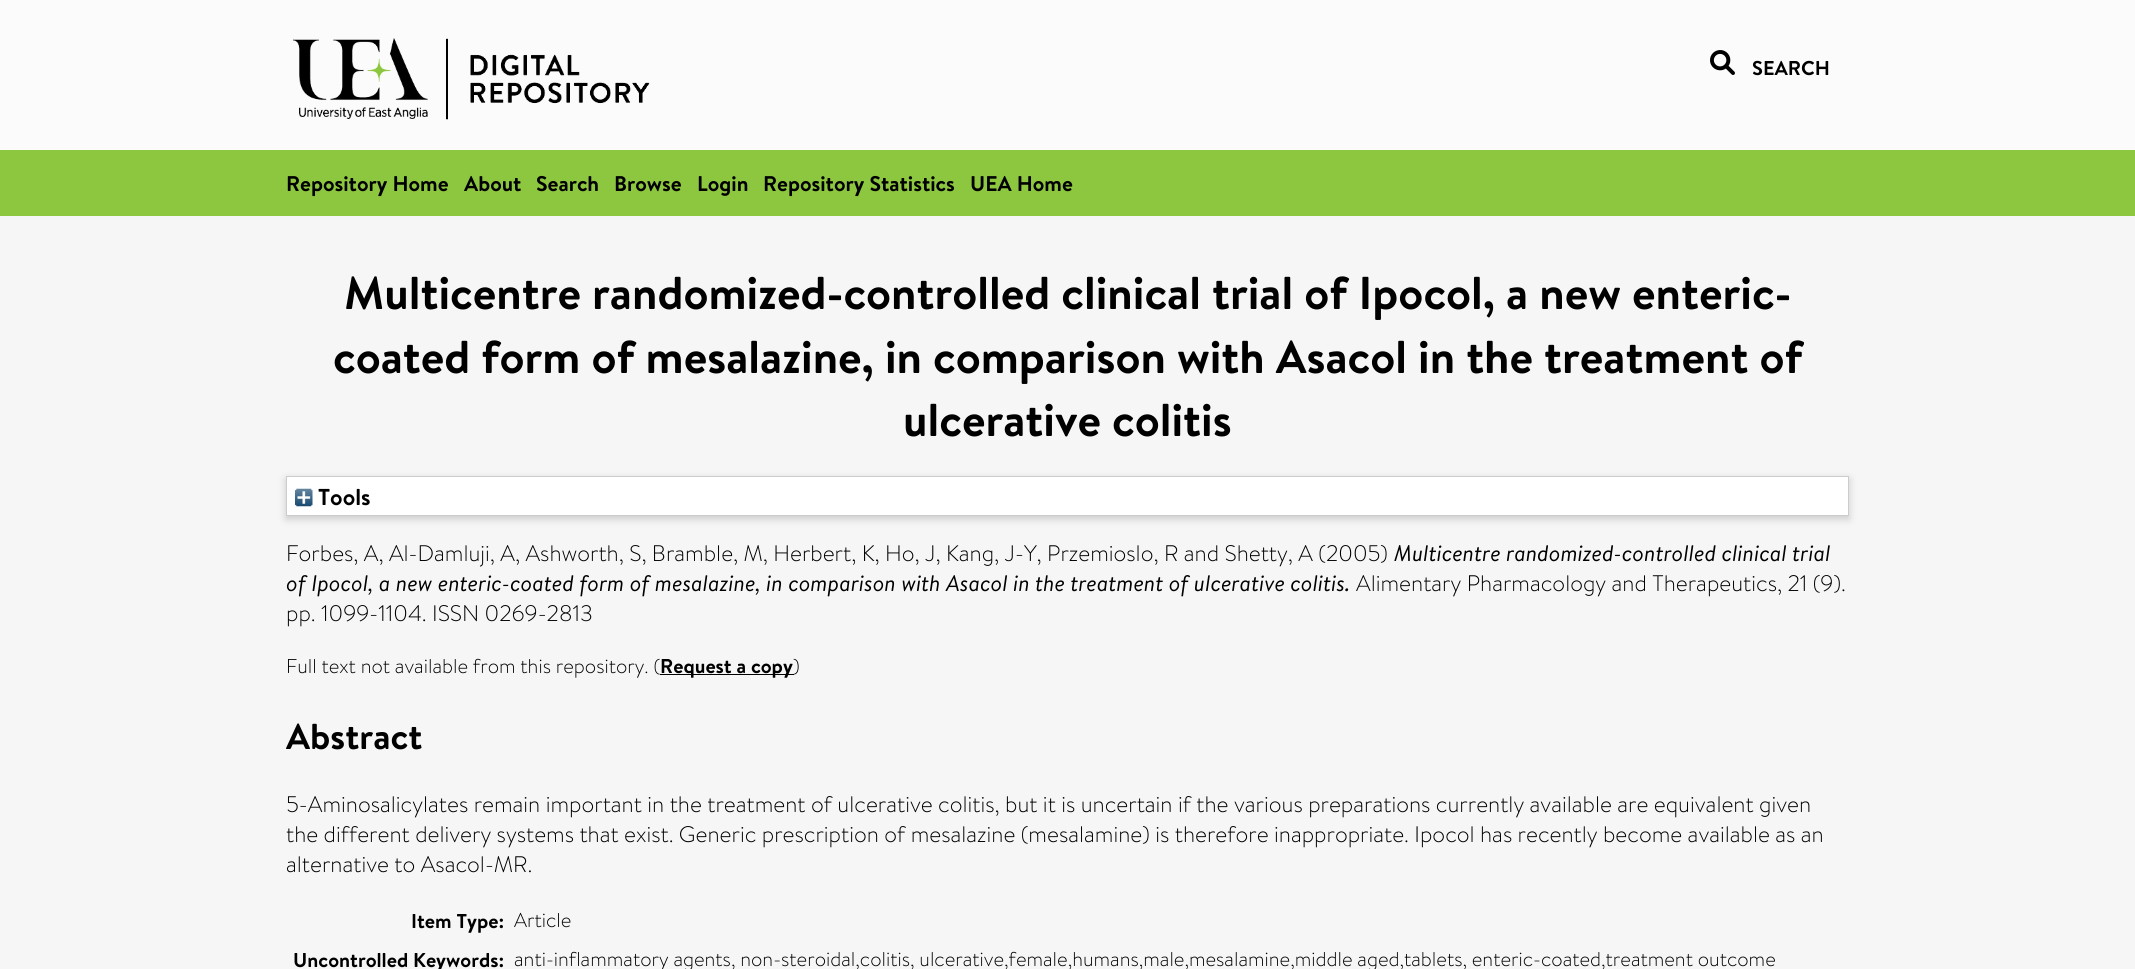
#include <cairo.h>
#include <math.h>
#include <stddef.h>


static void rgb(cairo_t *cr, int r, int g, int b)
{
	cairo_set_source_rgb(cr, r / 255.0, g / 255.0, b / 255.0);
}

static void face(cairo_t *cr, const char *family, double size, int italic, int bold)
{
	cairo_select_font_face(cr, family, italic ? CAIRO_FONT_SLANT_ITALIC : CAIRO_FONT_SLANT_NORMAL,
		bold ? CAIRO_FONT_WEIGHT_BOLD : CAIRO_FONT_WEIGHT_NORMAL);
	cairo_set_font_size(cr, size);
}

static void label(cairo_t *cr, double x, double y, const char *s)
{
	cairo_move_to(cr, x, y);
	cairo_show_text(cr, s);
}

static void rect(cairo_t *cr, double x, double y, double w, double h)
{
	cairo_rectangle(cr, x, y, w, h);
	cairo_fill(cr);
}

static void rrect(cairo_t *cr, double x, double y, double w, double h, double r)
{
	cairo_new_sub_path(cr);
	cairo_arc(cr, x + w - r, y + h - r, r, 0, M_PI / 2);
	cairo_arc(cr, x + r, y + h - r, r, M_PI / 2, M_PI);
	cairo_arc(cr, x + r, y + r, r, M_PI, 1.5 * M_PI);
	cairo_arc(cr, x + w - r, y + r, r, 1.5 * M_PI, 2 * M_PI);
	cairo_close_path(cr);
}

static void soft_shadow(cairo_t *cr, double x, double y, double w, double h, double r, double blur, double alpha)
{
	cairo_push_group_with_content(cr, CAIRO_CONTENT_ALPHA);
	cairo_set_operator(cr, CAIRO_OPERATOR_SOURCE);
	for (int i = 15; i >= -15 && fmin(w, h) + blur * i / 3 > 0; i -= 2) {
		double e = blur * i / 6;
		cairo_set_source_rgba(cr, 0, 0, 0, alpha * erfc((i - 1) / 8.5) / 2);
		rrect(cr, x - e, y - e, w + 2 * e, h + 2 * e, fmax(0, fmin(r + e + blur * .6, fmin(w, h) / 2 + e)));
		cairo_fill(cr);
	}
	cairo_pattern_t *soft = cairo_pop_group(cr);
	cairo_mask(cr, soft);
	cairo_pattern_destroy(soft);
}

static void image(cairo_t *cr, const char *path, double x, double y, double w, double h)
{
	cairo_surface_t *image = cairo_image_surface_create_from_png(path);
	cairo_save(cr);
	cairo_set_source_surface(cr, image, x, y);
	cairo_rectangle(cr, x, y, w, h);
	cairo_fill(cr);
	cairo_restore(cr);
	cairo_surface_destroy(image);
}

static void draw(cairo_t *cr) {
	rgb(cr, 246, 246, 246);
	cairo_paint(cr);
	rgb(cr, 251, 251, 251);
	rect(cr, 0, 0, 2135, 150);
	image(cr, "image0.png", 293, 38, 357, 82);
	image(cr, "image1.png", 1710, 50, 25, 25);
	face(cr, "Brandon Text", 20, 0, 1);
	rgb(cr, 0, 0, 0);
	label(cr, 1752, 75, "SEARCH");
	rgb(cr, 141, 198, 63);
	rect(cr, 0, 150, 2135, 66);
	face(cr, "Brandon Text", 21.25, 0, 1);
	rgb(cr, 0, 0, 0);
	label(cr, 286, 191, "Repository Home");
	label(cr, 464, 191, "About");
	label(cr, 536, 191, "Search");
	label(cr, 614, 191, "Browse");
	label(cr, 697, 191, "Login");
	label(cr, 763, 191, "Repository Statistics");
	label(cr, 970, 191, "UEA Home");
	face(cr, "Brandon Text", 46, 0, 1);
	label(cr, 344, 309, "Multicentre randomized-controlled clinical trial of Ipocol, a new enteric-");
	label(cr, 333, 373, "coated form of mesalazine, in comparison with Asacol in the treatment of");
	label(cr, 903, 436, "ulcerative colitis");
	rgb(cr, 100, 100, 100);
	soft_shadow(cr, 286, 479, 1563, 40, 0, 4, 0.3);
	rgb(cr, 255, 255, 255);
	cairo_rectangle(cr, 286.5, 476.5, 1562, 39);
	cairo_fill_preserve(cr);
	rgb(cr, 204, 204, 204);
	cairo_set_line_width(cr, 1);
	cairo_stroke(cr);
	image(cr, "image2.png", 295, 488, 18, 19);
	face(cr, "Brandon Text", 23, 0, 1);
	rgb(cr, 0, 0, 0);
	label(cr, 318, 505, "Tools");
	face(cr, "Brandon Text Light", 22.5, 0, 0);
	label(cr, 286, 561, "Forbes, A, Al-Damluji, A, Ashworth, S, Bramble, M, Herbert, K, Ho, J, Kang, J-Y, Przemioslo, R and Shetty, A (2005)");
	face(cr, "Brandon Text", 22.5, 1, 0);
	label(cr, 1394, 561, "Multicentre randomized-controlled clinical trial");
	label(cr, 286, 591, "of Ipocol, a new enteric-coated form of mesalazine, in comparison with Asacol in the treatment of ulcerative colitis.");
	face(cr, "Brandon Text Light", 22.5, 0, 0);
	label(cr, 1356, 591, "Alimentary Pharmacology and Therapeutics, 21 (9).");
	label(cr, 286, 621, "pp. 1099-1104. ISSN 0269-2813");
	face(cr, "Brandon Text Light", 20, 0, 0);
	label(cr, 286, 673, "Full text not available from this repository. (");
	rect(cr, 660, 674, 134, 1);
	face(cr, "Brandon Text", 20, 0, 1);
	label(cr, 660, 673, "Request a copy");
	face(cr, "Brandon Text Light", 20, 0, 0);
	label(cr, 793, 673, ")");
	face(cr, "Brandon Text", 36, 0, 1);
	label(cr, 286, 749, "Abstract");
	face(cr, "Brandon Text Light", 22.5, 0, 0);
	label(cr, 286, 812, "5-Aminosalicylates remain important in the treatment of ulcerative colitis, but it is uncertain if the various preparations currently available are equivalent given");
	label(cr, 286, 842, "the different delivery systems that exist. Generic prescription of mesalazine (mesalamine) is therefore inappropriate. Ipocol has recently become available as an");
	label(cr, 286, 872, "alternative to Asacol-MR.");
	face(cr, "Brandon Text", 20, 0, 1);
	label(cr, 411, 928, "Item Type:");
	face(cr, "Brandon Text Light", 20, 0, 0);
	label(cr, 514, 927, "Article");
	face(cr, "Brandon Text", 20, 0, 1);
	label(cr, 293, 967, "Uncontrolled Keywords:");
	face(cr, "Brandon Text Light", 20, 0, 0);
	label(cr, 514, 966, "anti-inflammatory agents, non-steroidal,colitis, ulcerative,female,humans,male,mesalamine,middle aged,tablets, enteric-coated,treatment outcome");
}

int main(void) {
	cairo_surface_t *surface = cairo_image_surface_create(CAIRO_FORMAT_RGB24, 2135, 969);
	cairo_t *cr = cairo_create(surface);
	cairo_font_options_t *options = cairo_font_options_create();
	cairo_font_options_set_hint_metrics(options, CAIRO_HINT_METRICS_OFF);
	cairo_font_options_set_hint_style(options, CAIRO_HINT_STYLE_NONE);
	cairo_set_font_options(cr, options);
	cairo_set_miter_limit(cr, 4);
	draw(cr);
	cairo_surface_write_to_png(surface, "render.png");
	cairo_font_options_destroy(options);
	cairo_destroy(cr);
	cairo_surface_destroy(surface);
	return 0;
}
